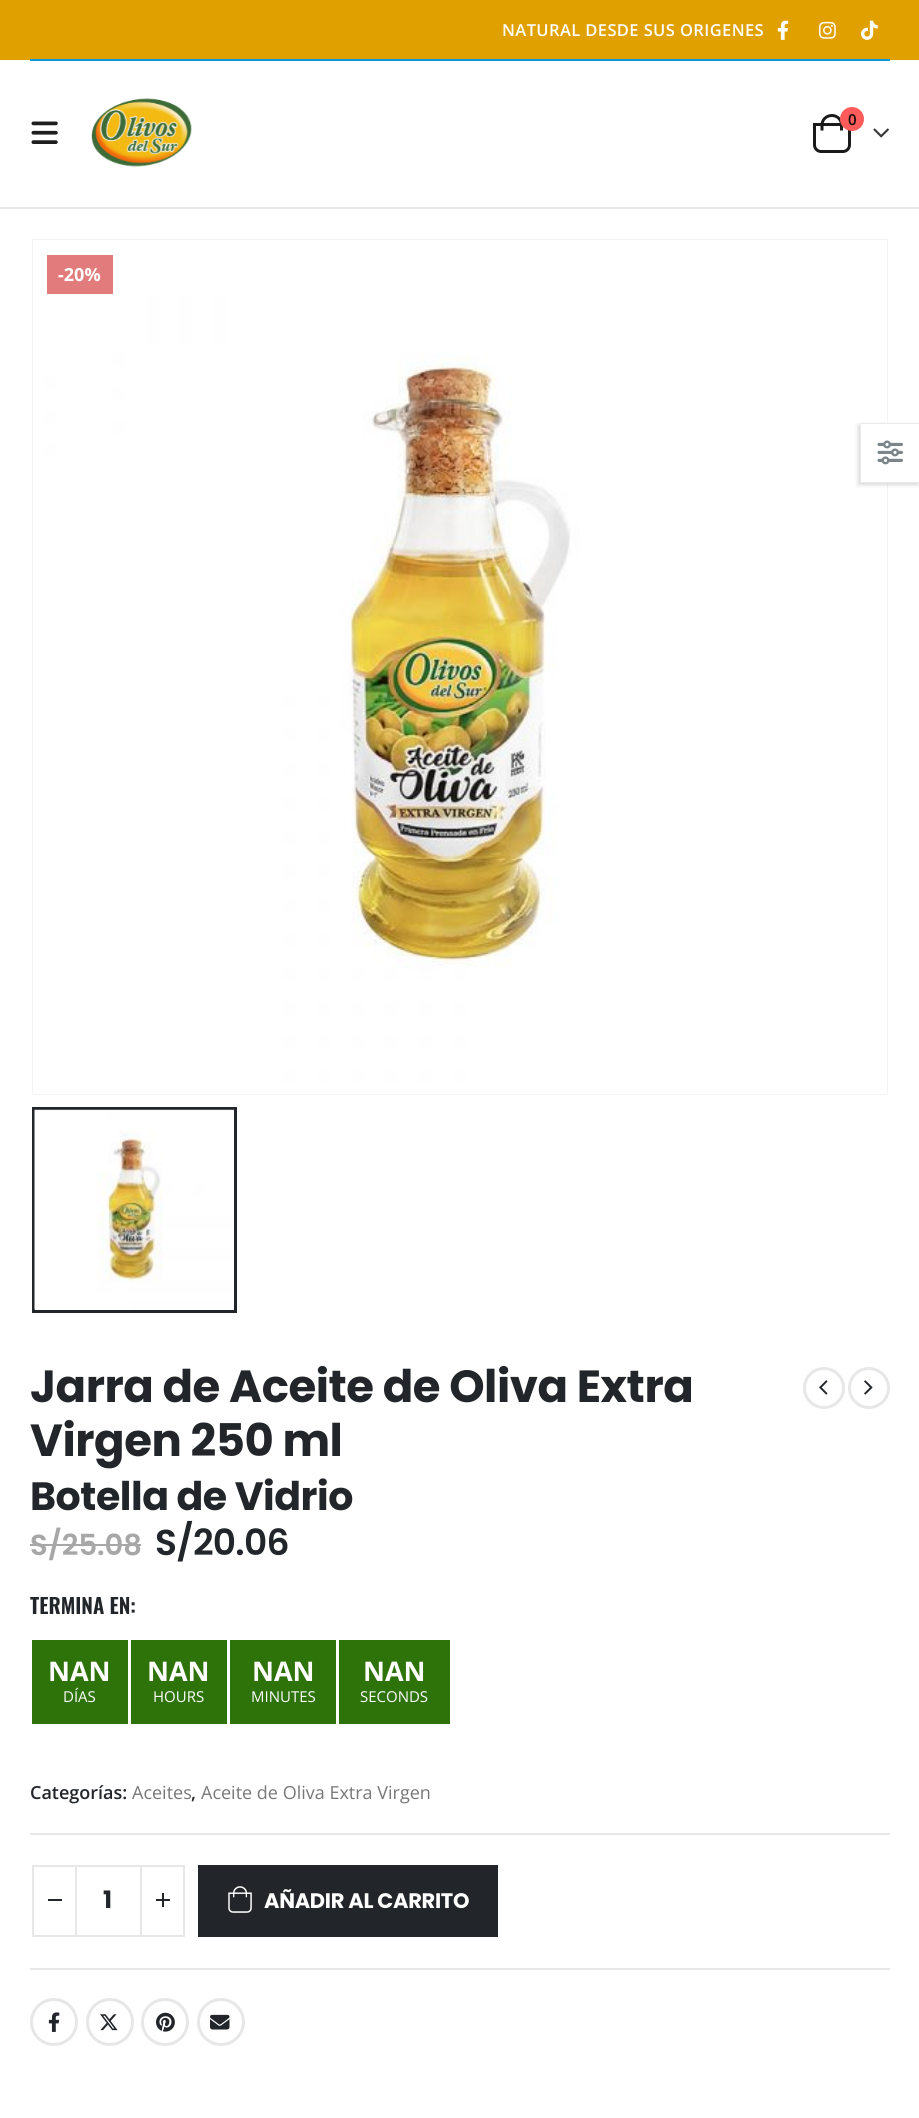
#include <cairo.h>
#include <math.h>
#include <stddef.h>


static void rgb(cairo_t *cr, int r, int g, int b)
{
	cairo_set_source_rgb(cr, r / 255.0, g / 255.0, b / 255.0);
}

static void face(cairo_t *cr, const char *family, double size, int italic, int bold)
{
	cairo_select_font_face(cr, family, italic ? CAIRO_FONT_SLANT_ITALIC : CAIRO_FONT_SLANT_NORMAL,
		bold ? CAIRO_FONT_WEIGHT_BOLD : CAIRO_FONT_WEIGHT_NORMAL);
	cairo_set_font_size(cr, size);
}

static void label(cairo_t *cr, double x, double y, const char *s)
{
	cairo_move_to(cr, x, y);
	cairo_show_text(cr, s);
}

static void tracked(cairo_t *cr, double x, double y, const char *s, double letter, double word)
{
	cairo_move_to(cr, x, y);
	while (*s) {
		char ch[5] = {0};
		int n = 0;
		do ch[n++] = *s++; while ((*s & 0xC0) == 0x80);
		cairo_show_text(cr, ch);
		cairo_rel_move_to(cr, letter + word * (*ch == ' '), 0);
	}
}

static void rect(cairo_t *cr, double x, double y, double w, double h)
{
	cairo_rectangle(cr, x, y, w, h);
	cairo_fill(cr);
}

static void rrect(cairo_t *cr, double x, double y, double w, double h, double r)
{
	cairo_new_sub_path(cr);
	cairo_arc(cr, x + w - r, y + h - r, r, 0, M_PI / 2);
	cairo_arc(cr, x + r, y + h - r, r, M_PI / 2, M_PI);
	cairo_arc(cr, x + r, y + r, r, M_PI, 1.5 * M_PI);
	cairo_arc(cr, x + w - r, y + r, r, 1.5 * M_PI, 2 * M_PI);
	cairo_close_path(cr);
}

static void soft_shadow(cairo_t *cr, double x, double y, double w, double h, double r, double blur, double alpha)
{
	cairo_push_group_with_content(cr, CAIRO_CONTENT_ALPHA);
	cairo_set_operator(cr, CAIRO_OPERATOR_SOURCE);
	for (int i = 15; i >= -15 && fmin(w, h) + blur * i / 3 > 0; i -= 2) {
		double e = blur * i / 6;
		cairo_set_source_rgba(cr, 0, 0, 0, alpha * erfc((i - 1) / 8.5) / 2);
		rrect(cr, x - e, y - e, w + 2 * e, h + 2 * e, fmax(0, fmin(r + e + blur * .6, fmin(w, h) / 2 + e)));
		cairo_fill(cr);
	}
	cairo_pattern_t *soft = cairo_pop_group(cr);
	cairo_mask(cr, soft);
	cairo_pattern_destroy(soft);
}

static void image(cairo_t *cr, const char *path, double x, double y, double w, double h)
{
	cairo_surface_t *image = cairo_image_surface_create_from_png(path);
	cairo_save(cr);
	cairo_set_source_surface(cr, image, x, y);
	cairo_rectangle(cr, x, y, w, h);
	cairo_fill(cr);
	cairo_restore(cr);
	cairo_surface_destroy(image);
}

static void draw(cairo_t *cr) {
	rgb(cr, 255, 255, 255);
	cairo_paint(cr);
	rgb(cr, 231, 231, 231);
	rect(cr, 0, 207, 919, 2);
	rgb(cr, 224, 160, 0);
	rect(cr, 0, 0, 919, 60);
	face(cr, "Open Sans SemiBold", 16.5, 0, 0);
	rgb(cr, 255, 255, 255);
	tracked(cr, 502, 36, "NATURAL DESDE SUS ORIGENES", 0.4, 0);
	image(cr, "image0.png", 777, 20, 12, 20);
	image(cr, "image1.png", 819, 21, 17, 18);
	image(cr, "image2.png", 861, 20, 17, 20);
	rgb(cr, 14, 149, 216);
	rect(cr, 30, 59, 860, 2);
	image(cr, "image3.png", 31, 121, 27, 23);
	image(cr, "image4.png", 91, 98, 101, 69);
	cairo_new_path(cr);
	cairo_move_to(cr, 814.5, 124.5);
	cairo_line_to(cr, 849.5, 124.5);
	cairo_line_to(cr, 849.5, 145);
	cairo_curve_to(cr, 849.5, 148.5, 846.5, 151.5, 843, 151.5);
	cairo_line_to(cr, 821, 151.5);
	cairo_curve_to(cr, 817.5, 151.5, 814.5, 148.5, 814.5, 145);
	cairo_close_path(cr);
	rgb(cr, 26, 26, 26);
	cairo_set_line_width(cr, 3);
	cairo_stroke(cr);
	cairo_set_fill_rule(cr, CAIRO_FILL_RULE_EVEN_ODD);
	cairo_new_path(cr);
	cairo_move_to(cr, 832, 114);
	cairo_curve_to(cr, 838, 114, 843, 119, 843, 125);
	cairo_line_to(cr, 843, 130.5);
	cairo_line_to(cr, 820.5, 130.5);
	cairo_line_to(cr, 820.5, 125);
	cairo_curve_to(cr, 820.5, 119, 825.5, 114, 832, 114);
	cairo_close_path(cr);
	cairo_move_to(cr, 832, 117);
	cairo_curve_to(cr, 836.5, 117, 840, 120.5, 840, 125);
	cairo_line_to(cr, 840, 130.5);
	cairo_line_to(cr, 823.5, 130.5);
	cairo_line_to(cr, 823.5, 125);
	cairo_curve_to(cr, 823.5, 120.5, 827, 117, 832, 117);
	cairo_close_path(cr);
	cairo_fill(cr);
	rgb(cr, 255, 91, 91);
	cairo_arc(cr, 852, 119, 12, 0, 2 * M_PI);
	cairo_fill(cr);
	face(cr, "Open Sans SemiBold", 15, 0, 0);
	rgb(cr, 12, 12, 12);
	label(cr, 848, 125, "0");
	image(cr, "image5.png", 873, 128, 16, 10);
	cairo_rectangle(cr, 33, 240, 854, 854);
	rgb(cr, 244, 244, 244);
	cairo_set_line_width(cr, 2);
	cairo_stroke(cr);
	image(cr, "image6.png", 33, 240, 854, 854);
	rgb(cr, 226, 124, 124);
	rect(cr, 47, 255, 66, 39);
	face(cr, "Open Sans", 18, 0, 1);
	rgb(cr, 255, 255, 255);
	label(cr, 58, 281, "-20%");
	cairo_rectangle(cr, 33.5, 1108.5, 202, 203);
	rgb(cr, 34, 37, 41);
	cairo_set_line_width(cr, 3);
	cairo_stroke(cr);
	image(cr, "image7.png", 34, 1109, 200, 201);
	face(cr, "Poppins", 45, 0, 1);
	tracked(cr, 30, 1402, "Jarra de Aceite de Oliva Extra", -0.45, 0);
	tracked(cr, 30, 1456, "Virgen 250 ml", -0.45, 0);
	face(cr, "Poppins", 39.5, 0, 1);
	tracked(cr, 30, 1510, "Botella de Vidrio", -0.45, 0);
	cairo_new_path(cr);
	cairo_arc(cr, 824, 1388, 19.5, 0, 2 * M_PI);
	rgb(cr, 231, 231, 231);
	cairo_stroke(cr);
	image(cr, "image8.png", 819, 1380, 9, 15);
	cairo_arc(cr, 869, 1388, 19.5, 0, 2 * M_PI);
	cairo_stroke(cr);
	image(cr, "image9.png", 864, 1380, 9, 15);
	face(cr, "Poppins SemiBold", 29, 0, 0);
	rgb(cr, 167, 167, 167);
	label(cr, 30, 1555, "S/25.08");
	rect(cr, 30, 1544, 111, 2);
	face(cr, "Poppins SemiBold", 36, 0, 0);
	rgb(cr, 34, 37, 41);
	tracked(cr, 155, 1555, "S/20.06", -0.75, 0);
	face(cr, "Oswald SemiBold", 21, 0, 0);
	label(cr, 30, 1614, "TERMINA EN:");
	rgb(cr, 46, 114, 10);
	rect(cr, 32, 1640, 96, 84);
	face(cr, "Open Sans", 27, 0, 1);
	rgb(cr, 255, 255, 255);
	label(cr, 48, 1681, "NAN");
	face(cr, "Open Sans", 15, 0, 0);
	label(cr, 63, 1702, "DÍAS");
	rgb(cr, 46, 114, 10);
	rect(cr, 131, 1640, 96, 84);
	face(cr, "Open Sans", 27, 0, 1);
	rgb(cr, 255, 255, 255);
	label(cr, 147, 1681, "NAN");
	face(cr, "Open Sans", 15, 0, 0);
	label(cr, 153, 1702, "HOURS");
	rgb(cr, 46, 114, 10);
	rect(cr, 230, 1640, 106, 84);
	face(cr, "Open Sans", 27, 0, 1);
	rgb(cr, 255, 255, 255);
	label(cr, 252, 1681, "NAN");
	face(cr, "Open Sans", 15, 0, 0);
	label(cr, 251, 1702, "MINUTES");
	rgb(cr, 46, 114, 10);
	rect(cr, 339, 1640, 111, 84);
	face(cr, "Open Sans", 27, 0, 1);
	rgb(cr, 255, 255, 255);
	label(cr, 363, 1681, "NAN");
	face(cr, "Open Sans", 15, 0, 0);
	label(cr, 360, 1702, "SECONDS");
	face(cr, "Open Sans SemiBold", 18, 0, 0);
	rgb(cr, 34, 37, 41);
	label(cr, 30, 1799, "Categorías:");
	face(cr, "Open Sans", 18, 0, 0);
	rgb(cr, 119, 119, 119);
	label(cr, 132, 1799, "Aceites");
	face(cr, "Open Sans SemiBold", 18, 0, 0);
	rgb(cr, 34, 37, 41);
	label(cr, 191, 1799, ",");
	face(cr, "Open Sans", 18, 0, 0);
	rgb(cr, 119, 119, 119);
	label(cr, 201, 1799, "Aceite de Oliva Extra Virgen");
	rgb(cr, 231, 231, 231);
	rect(cr, 30, 1833, 860, 2);
	rect(cr, 30, 1968, 860, 2);
	rect(cr, 75, 1865, 66, 2);
	rect(cr, 75, 1935, 66, 2);
	cairo_rectangle(cr, 33, 1866, 43, 70);
	cairo_set_line_width(cr, 2);
	cairo_stroke(cr);
	rgb(cr, 34, 37, 41);
	rect(cr, 48, 1899, 14, 2);
	face(cr, "Poppins", 24, 0, 1);
	label(cr, 103, 1908, "1");
	cairo_rectangle(cr, 141, 1866, 43, 70);
	rgb(cr, 231, 231, 231);
	cairo_stroke(cr);
	rgb(cr, 34, 37, 41);
	rect(cr, 156, 1899, 14, 2);
	rect(cr, 162, 1893, 2, 14);
	rect(cr, 198, 1865, 300, 72);
	image(cr, "image10.png", 228, 1886, 24, 27);
	face(cr, "Poppins", 21, 0, 1);
	rgb(cr, 255, 255, 255);
	tracked(cr, 264, 1908, "AÑADIR AL CARRITO", -0.3, 0);
	cairo_new_path(cr);
	cairo_arc(cr, 54, 2022, 22.5, 0, 2 * M_PI);
	rgb(cr, 231, 231, 231);
	cairo_set_line_width(cr, 3);
	cairo_stroke(cr);
	image(cr, "image11.png", 48, 2012, 12, 20);
	cairo_arc(cr, 110, 2022, 22.5, 0, 2 * M_PI);
	cairo_stroke(cr);
	image(cr, "image12.png", 100, 2014, 18, 17);
	cairo_arc(cr, 165, 2022, 22.5, 0, 2 * M_PI);
	cairo_stroke(cr);
	image(cr, "image13.png", 156, 2012, 19, 20);
	cairo_arc(cr, 221, 2022, 22.5, 0, 2 * M_PI);
	cairo_stroke(cr);
	image(cr, "image14.png", 210, 2014, 20, 16);
	rgb(cr, 0, 0, 0);
	soft_shadow(cr, 858, 425, 60, 60, 0, 2, 0.15);
	rgb(cr, 255, 255, 255);
	rect(cr, 860, 423, 59, 60);
	rgb(cr, 235, 235, 235);
	cairo_set_fill_rule(cr, CAIRO_FILL_RULE_WINDING);
	cairo_new_path(cr);
	cairo_move_to(cr, 860, 423);
	cairo_line_to(cr, 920, 423);
	cairo_line_to(cr, 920, 424);
	cairo_line_to(cr, 861, 424);
	cairo_close_path(cr);
	cairo_move_to(cr, 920, 483);
	cairo_line_to(cr, 860, 483);
	cairo_line_to(cr, 861, 482);
	cairo_line_to(cr, 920, 482);
	cairo_close_path(cr);
	cairo_fill(cr);
	cairo_set_source_rgba(cr, 0, 0, 0, 0.08);
	cairo_new_path(cr);
	cairo_move_to(cr, 860, 483);
	cairo_line_to(cr, 860, 423);
	cairo_line_to(cr, 861, 424);
	cairo_line_to(cr, 861, 482);
	cairo_close_path(cr);
	cairo_fill(cr);
	image(cr, "image15.png", 877, 440, 26, 25);
}

int main(void) {
	cairo_surface_t *surface = cairo_image_surface_create(CAIRO_FORMAT_RGB24, 919, 2118);
	cairo_t *cr = cairo_create(surface);
	cairo_font_options_t *options = cairo_font_options_create();
	cairo_font_options_set_hint_metrics(options, CAIRO_HINT_METRICS_OFF);
	cairo_font_options_set_hint_style(options, CAIRO_HINT_STYLE_NONE);
	cairo_set_font_options(cr, options);
	cairo_set_miter_limit(cr, 4);
	draw(cr);
	cairo_surface_write_to_png(surface, "render.png");
	cairo_font_options_destroy(options);
	cairo_destroy(cr);
	cairo_surface_destroy(surface);
	return 0;
}
